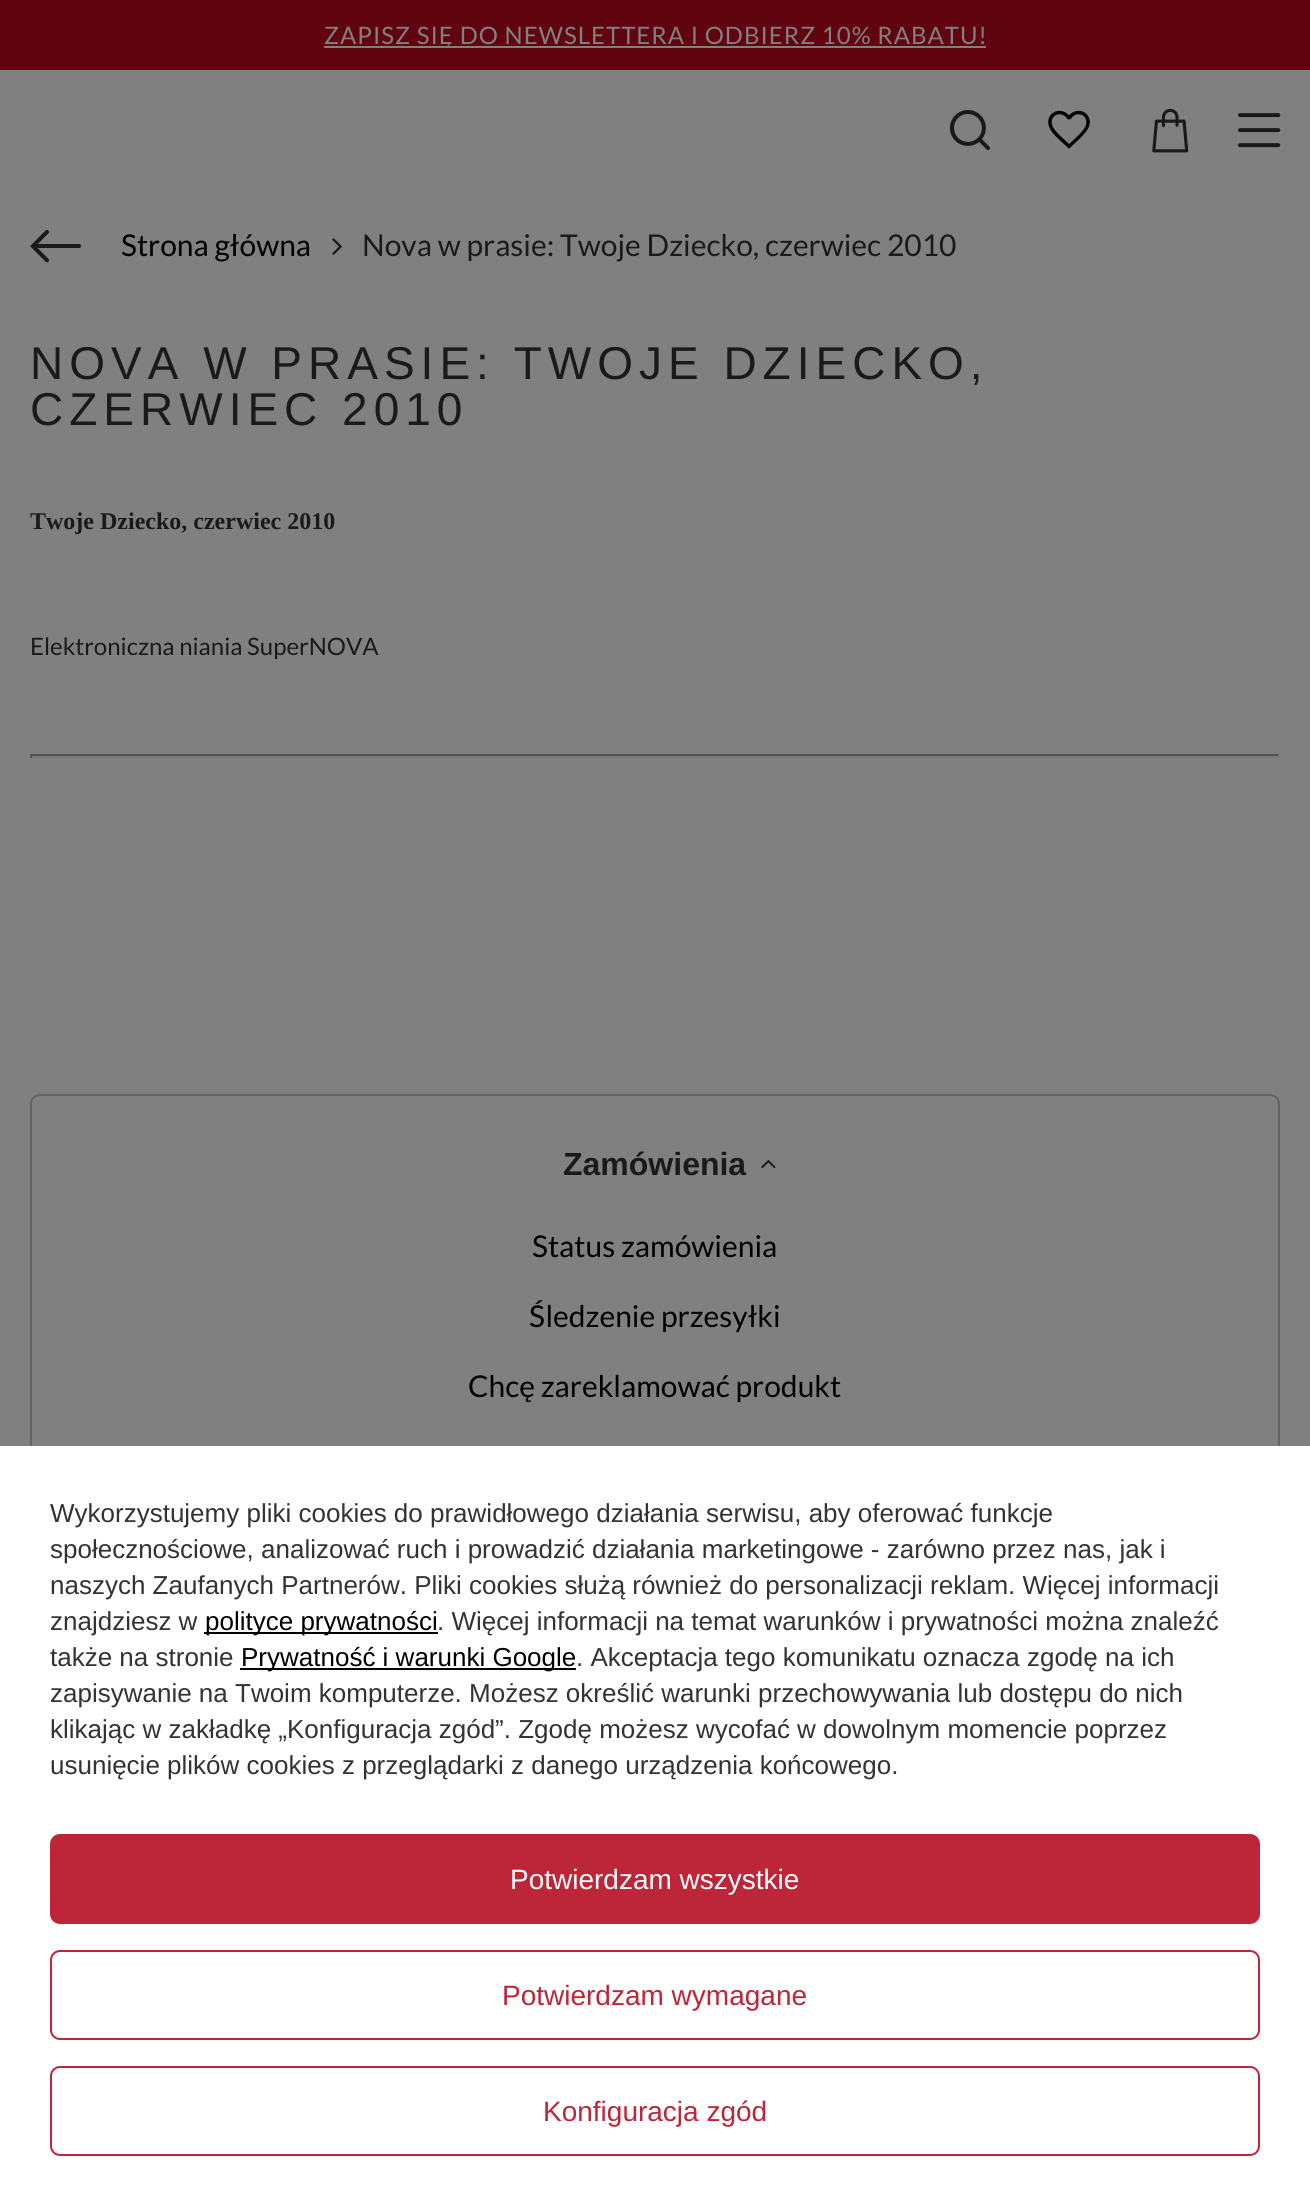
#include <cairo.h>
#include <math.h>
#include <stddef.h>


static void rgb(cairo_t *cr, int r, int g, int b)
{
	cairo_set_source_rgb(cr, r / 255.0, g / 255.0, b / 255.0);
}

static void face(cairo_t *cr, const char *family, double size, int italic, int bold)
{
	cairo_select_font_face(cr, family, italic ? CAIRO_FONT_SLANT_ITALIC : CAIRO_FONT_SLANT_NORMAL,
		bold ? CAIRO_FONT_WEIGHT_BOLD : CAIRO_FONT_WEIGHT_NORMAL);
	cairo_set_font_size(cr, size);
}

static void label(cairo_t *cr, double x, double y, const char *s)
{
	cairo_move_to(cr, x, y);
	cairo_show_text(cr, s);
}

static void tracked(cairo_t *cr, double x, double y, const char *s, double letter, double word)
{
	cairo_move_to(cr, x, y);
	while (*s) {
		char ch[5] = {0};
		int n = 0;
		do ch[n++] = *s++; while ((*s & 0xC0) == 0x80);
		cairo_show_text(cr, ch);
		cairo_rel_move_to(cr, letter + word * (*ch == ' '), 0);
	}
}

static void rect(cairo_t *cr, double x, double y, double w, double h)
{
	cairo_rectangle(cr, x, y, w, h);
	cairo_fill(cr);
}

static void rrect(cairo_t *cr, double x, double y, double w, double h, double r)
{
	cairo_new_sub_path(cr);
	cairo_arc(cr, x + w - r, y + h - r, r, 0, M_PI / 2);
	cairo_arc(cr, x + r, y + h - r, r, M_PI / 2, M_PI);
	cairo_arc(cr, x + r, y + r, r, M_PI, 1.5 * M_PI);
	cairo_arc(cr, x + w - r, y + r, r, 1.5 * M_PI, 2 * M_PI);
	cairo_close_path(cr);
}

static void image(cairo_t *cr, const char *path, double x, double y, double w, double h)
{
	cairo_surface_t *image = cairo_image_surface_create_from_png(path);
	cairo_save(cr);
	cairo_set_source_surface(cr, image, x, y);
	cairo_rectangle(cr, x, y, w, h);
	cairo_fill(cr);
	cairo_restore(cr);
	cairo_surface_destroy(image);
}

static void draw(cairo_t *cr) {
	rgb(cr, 128, 128, 128);
	cairo_paint(cr);
	rgb(cr, 96, 5, 15);
	rect(cr, 0, 0, 1310, 70);
	rgb(cr, 128, 128, 128);
	rect(cr, 324, 46, 662, 2);
	face(cr, "Lato", 24, 0, 0);
	tracked(cr, 324, 44, "ZAPISZ SIĘ DO NEWSLETTERA I ODBIERZ 10% RABATU!", 1, 0);
	image(cr, "image0.png", 949, 110, 42, 41);
	image(cr, "image1.png", 1048, 110, 42, 39);
	image(cr, "image2.png", 1152, 108, 37, 45);
	image(cr, "image3.png", 1238, 113, 43, 35);
	image(cr, "image4.png", 30, 230, 51, 33);
	face(cr, "Lato", 30, 0, 0);
	rgb(cr, 0, 0, 0);
	label(cr, 121, 256, "Strona główna");
	image(cr, "image5.png", 332, 238, 10, 17);
	rgb(cr, 26, 26, 26);
	label(cr, 362, 256, "Nova w prasie: Twoje Dziecko, czerwiec 2010");
	face(cr, "Liberation Sans", 46, 0, 0);
	tracked(cr, 30, 379, "NOVA W PRASIE: TWOJE DZIECKO,", 6, 0);
	tracked(cr, 30, 425, "CZERWIEC 2010", 6, 0);
	face(cr, "Liberation Serif", 24, 0, 1);
	label(cr, 30, 529, "Twoje Dziecko, czerwiec 2010");
	face(cr, "Lato", 24, 0, 0);
	label(cr, 30, 655, "Elektroniczna niania SuperNOVA");
	rgb(cr, 80, 80, 80);
	rect(cr, 30, 754, 1250, 2);
	rgb(cr, 119, 119, 119);
	rect(cr, 1278, 754, 2, 4);
	rect(cr, 30, 756, 1250, 2);
	rgb(cr, 80, 80, 80);
	rect(cr, 30, 754, 2, 4);
	rrect(cr, 31, 1095, 1248, 568, 9);
	rgb(cr, 98, 100, 100);
	cairo_stroke(cr);
	face(cr, "Liberation Sans", 32, 0, 1);
	rgb(cr, 26, 26, 26);
	label(cr, 563, 1175, "Zamówienia");
	image(cr, "image6.png", 761, 1159, 15, 10);
	face(cr, "Lato", 30, 0, 0);
	rgb(cr, 0, 0, 0);
	label(cr, 532, 1257, "Status zamówienia");
	label(cr, 529, 1327, "Śledzenie przesyłki");
	label(cr, 468, 1397, "Chcę zareklamować produkt");
	rgb(cr, 255, 255, 255);
	rect(cr, 0, 1446, 1310, 760);
	face(cr, "Liberation Sans", 26, 0, 0);
	rgb(cr, 51, 51, 51);
	label(cr, 50, 1522, "Wykorzystujemy pliki cookies do prawidłowego działania serwisu, aby oferować funkcje");
	label(cr, 50, 1558, "społecznościowe, analizować ruch i prowadzić działania marketingowe - zarówno przez nas, jak i");
	label(cr, 50, 1594, "naszych Zaufanych Partnerów. Pliki cookies służą również do personalizacji reklam. Więcej informacji");
	label(cr, 50, 1630, "znajdziesz w");
	rgb(cr, 0, 0, 0);
	rect(cr, 204, 1632, 234, 2);
	label(cr, 205, 1630, "polityce prywatności");
	rgb(cr, 51, 51, 51);
	label(cr, 437, 1630, ". Więcej informacji na temat warunków i prywatności można znaleźć");
	label(cr, 50, 1666, "także na stronie");
	rgb(cr, 0, 0, 0);
	rect(cr, 240, 1668, 336, 2);
	label(cr, 241, 1666, "Prywatność i warunki Google");
	rgb(cr, 51, 51, 51);
	label(cr, 576, 1666, ". Akceptacja tego komunikatu oznacza zgodę na ich");
	label(cr, 50, 1702, "zapisywanie na Twoim komputerze. Możesz określić warunki przechowywania lub dostępu do nich");
	label(cr, 50, 1738, "klikając w zakładkę „Konfiguracja zgód”. Zgodę możesz wycofać w dowolnym momencie poprzez");
	label(cr, 50, 1774, "usunięcie plików cookies z przeglądarki z danego urządzenia końcowego.");
	rgb(cr, 189, 38, 57);
	rrect(cr, 51, 1835, 1208, 88, 9);
	cairo_fill_preserve(cr);
	cairo_stroke(cr);
	face(cr, "Liberation Sans", 28, 0, 0);
	rgb(cr, 255, 255, 255);
	label(cr, 510, 1889, "Potwierdzam wszystkie");
	rrect(cr, 51, 1951, 1208, 88, 9);
	rgb(cr, 189, 38, 57);
	cairo_stroke(cr);
	label(cr, 502, 2005, "Potwierdzam wymagane");
	rrect(cr, 51, 2067, 1208, 88, 9);
	cairo_stroke(cr);
	label(cr, 543, 2121, "Konfiguracja zgód");
}

int main(void) {
	cairo_surface_t *surface = cairo_image_surface_create(CAIRO_FORMAT_RGB24, 1310, 2206);
	cairo_t *cr = cairo_create(surface);
	cairo_font_options_t *options = cairo_font_options_create();
	cairo_font_options_set_hint_metrics(options, CAIRO_HINT_METRICS_OFF);
	cairo_font_options_set_hint_style(options, CAIRO_HINT_STYLE_NONE);
	cairo_set_font_options(cr, options);
	cairo_set_miter_limit(cr, 4);
	draw(cr);
	cairo_surface_write_to_png(surface, "render.png");
	cairo_font_options_destroy(options);
	cairo_destroy(cr);
	cairo_surface_destroy(surface);
	return 0;
}
